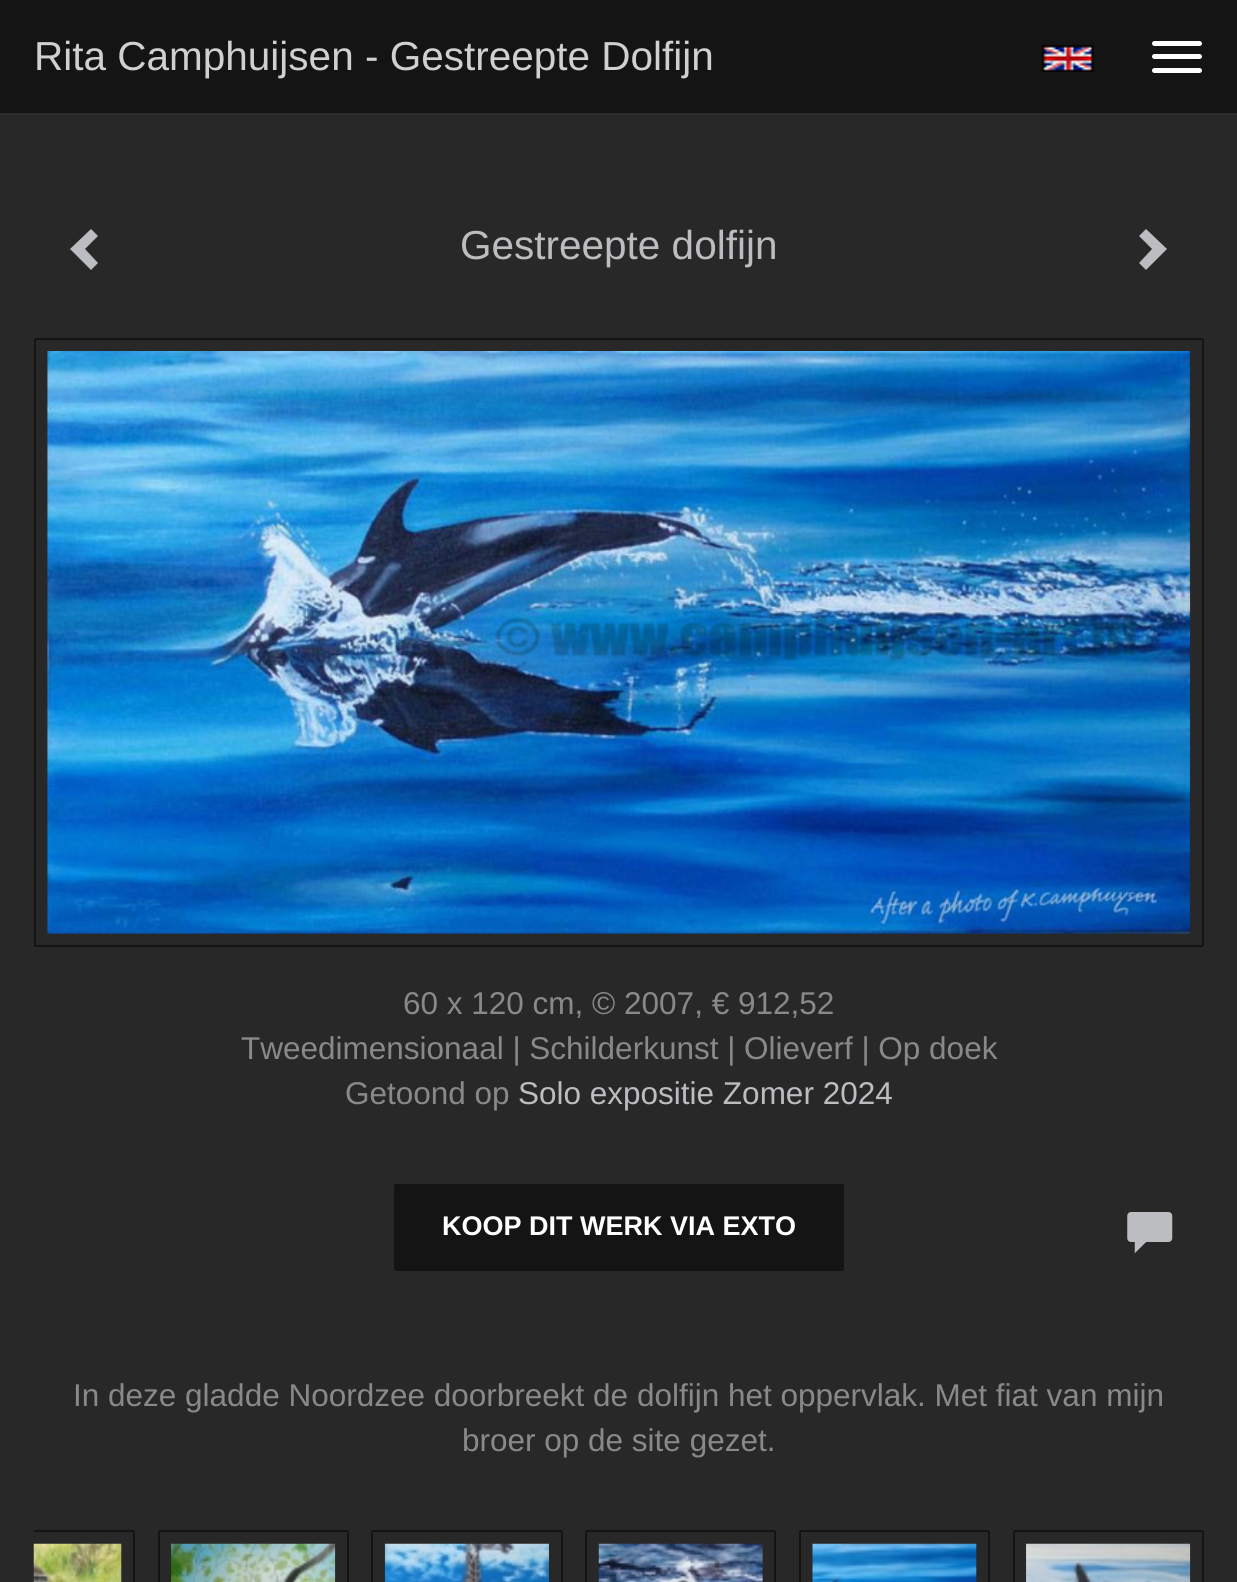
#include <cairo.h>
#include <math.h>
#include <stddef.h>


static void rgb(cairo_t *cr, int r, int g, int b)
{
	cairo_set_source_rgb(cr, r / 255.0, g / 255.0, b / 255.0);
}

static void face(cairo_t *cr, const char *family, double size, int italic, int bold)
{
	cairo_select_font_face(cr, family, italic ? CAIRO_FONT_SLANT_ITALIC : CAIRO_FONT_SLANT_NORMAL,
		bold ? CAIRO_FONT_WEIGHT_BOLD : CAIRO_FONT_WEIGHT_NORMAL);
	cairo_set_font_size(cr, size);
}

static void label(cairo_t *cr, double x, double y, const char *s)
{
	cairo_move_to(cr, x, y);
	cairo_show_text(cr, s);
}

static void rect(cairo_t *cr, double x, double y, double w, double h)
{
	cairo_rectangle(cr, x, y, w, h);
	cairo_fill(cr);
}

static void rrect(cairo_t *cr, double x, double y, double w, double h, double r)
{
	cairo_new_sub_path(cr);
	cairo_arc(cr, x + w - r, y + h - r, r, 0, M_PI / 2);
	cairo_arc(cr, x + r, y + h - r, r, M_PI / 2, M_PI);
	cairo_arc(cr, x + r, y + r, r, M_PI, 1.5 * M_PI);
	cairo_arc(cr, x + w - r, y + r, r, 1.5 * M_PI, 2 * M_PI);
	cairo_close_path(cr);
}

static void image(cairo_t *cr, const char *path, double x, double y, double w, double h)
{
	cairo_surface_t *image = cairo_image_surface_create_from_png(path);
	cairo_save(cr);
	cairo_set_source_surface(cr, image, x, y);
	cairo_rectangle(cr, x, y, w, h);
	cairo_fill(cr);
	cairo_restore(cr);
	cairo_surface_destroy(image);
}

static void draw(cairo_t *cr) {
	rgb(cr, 40, 40, 40);
	cairo_paint(cr);
	rgb(cr, 20, 20, 20);
	rect(cr, 0, 0, 1237, 113);
	rgb(cr, 45, 45, 45);
	rect(cr, 0, 113, 1237, 2);
	face(cr, "Liberation Sans", 40.5, 0, 0);
	rgb(cr, 208, 208, 208);
	label(cr, 34, 70, "Rita Camphuijsen - Gestreepte Dolfijn");
	rgb(cr, 255, 255, 255);
	rrect(cr, 1152, 41, 50, 5, 2.5);
	cairo_fill(cr);
	rrect(cr, 1152, 54, 50, 5, 2.5);
	cairo_fill(cr);
	rrect(cr, 1152, 68, 50, 5, 2.5);
	cairo_fill(cr);
	image(cr, "image0.png", 1041, 45, 53, 27);
	rgb(cr, 188, 189, 192);
	cairo_new_path(cr);
	cairo_move_to(cr, 98, 236);
	cairo_line_to(cr, 85, 249);
	cairo_line_to(cr, 98, 263);
	cairo_line_to(cr, 91, 270);
	cairo_line_to(cr, 70, 249);
	cairo_line_to(cr, 91, 229);
	cairo_close_path(cr);
	cairo_fill(cr);
	label(cr, 460, 259, "Gestreepte dolfijn");
	cairo_new_path(cr);
	cairo_move_to(cr, 1167, 249);
	cairo_line_to(cr, 1146, 270);
	cairo_line_to(cr, 1139, 263);
	cairo_line_to(cr, 1152, 249);
	cairo_line_to(cr, 1139, 236);
	cairo_line_to(cr, 1146, 229);
	cairo_close_path(cr);
	cairo_fill(cr);
	rrect(cr, 35, 339, 1168, 607, 1);
	rgb(cr, 20, 20, 20);
	cairo_stroke(cr);
	image(cr, "image1.png", 47, 351, 1144, 583);
	face(cr, "Liberation Sans", 31.5, 0, 0);
	rgb(cr, 137, 137, 139);
	label(cr, 403, 1014, "60 x 120 cm, © 2007, € 912,52");
	label(cr, 241, 1059, "Tweedimensionaal | Schilderkunst | Olieverf | Op doek");
	label(cr, 345, 1104, "Getoond op");
	rgb(cr, 188, 189, 192);
	label(cr, 518, 1104, "Solo expositie Zomer 2024");
	rgb(cr, 20, 20, 20);
	rrect(cr, 395, 1185, 448, 85, 1);
	cairo_fill_preserve(cr);
	cairo_stroke(cr);
	face(cr, "Liberation Sans", 27, 0, 1);
	rgb(cr, 255, 255, 255);
	label(cr, 442, 1235, "KOOP DIT WERK VIA EXTO");
	image(cr, "image2.png", 1127, 1212, 46, 42);
	face(cr, "Liberation Sans", 31.5, 0, 0);
	rgb(cr, 137, 137, 139);
	label(cr, 73, 1406, "In deze gladde Noordzee doorbreekt de dolfijn het oppervlak. Met fiat van mijn");
	label(cr, 462, 1451, "broer op de site gezet.");
	cairo_save(cr);
	cairo_rectangle(cr, 34, 1519, 1170, 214);
	cairo_clip(cr);
	rrect(cr, -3, 1531, 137, 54, 1);
	rgb(cr, 20, 20, 20);
	cairo_stroke(cr);
	cairo_restore(cr);
	image(cr, "image3.png", 33, 1543, 89, 39);
	rrect(cr, 159, 1531, 189, 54, 1);
	rgb(cr, 20, 20, 20);
	cairo_stroke(cr);
	image(cr, "image4.png", 171, 1543, 165, 39);
	rrect(cr, 372, 1531, 190, 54, 1);
	cairo_stroke(cr);
	image(cr, "image5.png", 384, 1543, 165, 39);
	rrect(cr, 586, 1531, 189, 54, 1);
	cairo_stroke(cr);
	image(cr, "image6.png", 598, 1543, 165, 39);
	rrect(cr, 800, 1531, 189, 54, 1);
	cairo_stroke(cr);
	image(cr, "image7.png", 812, 1543, 165, 39);
	rrect(cr, 1014, 1531, 189, 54, 1);
	cairo_stroke(cr);
	image(cr, "image8.png", 1026, 1543, 165, 39);
}

int main(void) {
	cairo_surface_t *surface = cairo_image_surface_create(CAIRO_FORMAT_RGB24, 1237, 1582);
	cairo_t *cr = cairo_create(surface);
	cairo_font_options_t *options = cairo_font_options_create();
	cairo_font_options_set_hint_metrics(options, CAIRO_HINT_METRICS_OFF);
	cairo_font_options_set_hint_style(options, CAIRO_HINT_STYLE_NONE);
	cairo_set_font_options(cr, options);
	cairo_set_miter_limit(cr, 4);
	draw(cr);
	cairo_surface_write_to_png(surface, "render.png");
	cairo_font_options_destroy(options);
	cairo_destroy(cr);
	cairo_surface_destroy(surface);
	return 0;
}
